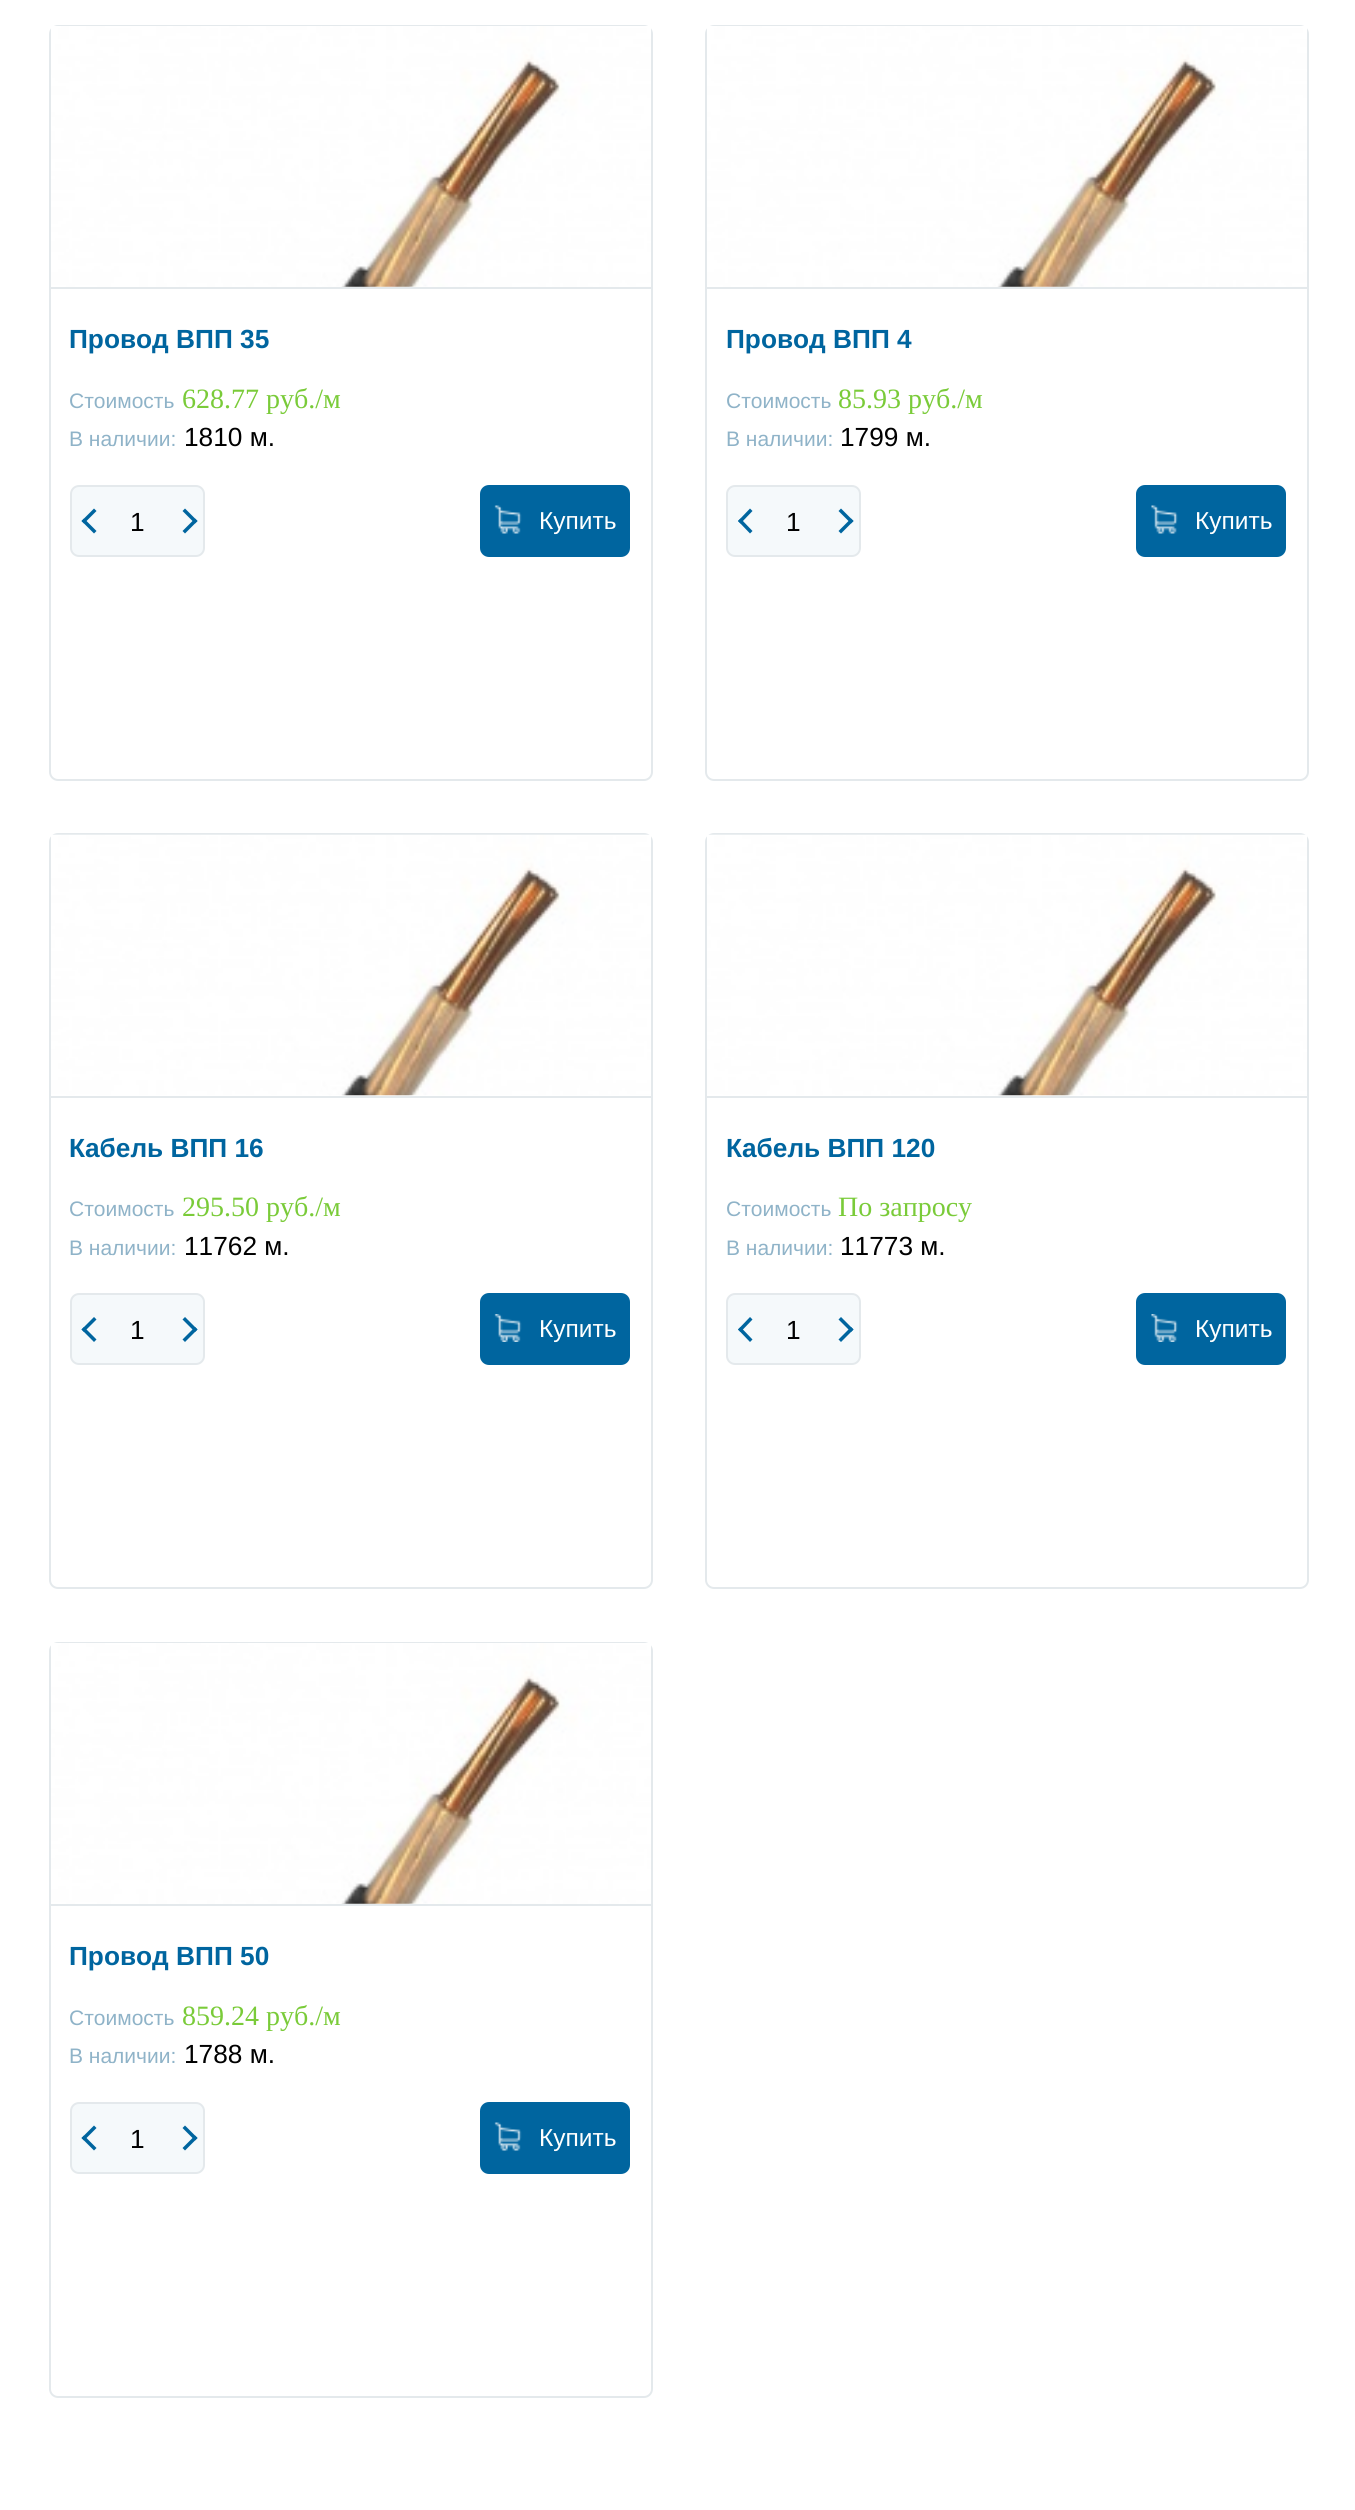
#include <cairo.h>
#include <math.h>
#include <stddef.h>


static void rgb(cairo_t *cr, int r, int g, int b)
{
	cairo_set_source_rgb(cr, r / 255.0, g / 255.0, b / 255.0);
}

static void face(cairo_t *cr, const char *family, double size, int italic, int bold)
{
	cairo_select_font_face(cr, family, italic ? CAIRO_FONT_SLANT_ITALIC : CAIRO_FONT_SLANT_NORMAL,
		bold ? CAIRO_FONT_WEIGHT_BOLD : CAIRO_FONT_WEIGHT_NORMAL);
	cairo_set_font_size(cr, size);
}

static void label(cairo_t *cr, double x, double y, const char *s)
{
	cairo_move_to(cr, x, y);
	cairo_show_text(cr, s);
}

static void rect(cairo_t *cr, double x, double y, double w, double h)
{
	cairo_rectangle(cr, x, y, w, h);
	cairo_fill(cr);
}

static void rrect(cairo_t *cr, double x, double y, double w, double h, double r)
{
	cairo_new_sub_path(cr);
	cairo_arc(cr, x + w - r, y + h - r, r, 0, M_PI / 2);
	cairo_arc(cr, x + r, y + h - r, r, M_PI / 2, M_PI);
	cairo_arc(cr, x + r, y + r, r, M_PI, 1.5 * M_PI);
	cairo_arc(cr, x + w - r, y + r, r, 1.5 * M_PI, 2 * M_PI);
	cairo_close_path(cr);
}

static void image(cairo_t *cr, const char *path, double x, double y, double w, double h)
{
	cairo_surface_t *image = cairo_image_surface_create_from_png(path);
	cairo_save(cr);
	cairo_set_source_surface(cr, image, x, y);
	cairo_rectangle(cr, x, y, w, h);
	cairo_fill(cr);
	cairo_restore(cr);
	cairo_surface_destroy(image);
}

static void draw(cairo_t *cr) {
	rgb(cr, 255, 255, 255);
	cairo_paint(cr);
	rrect(cr, 50, 26, 602, 754, 8);
	rgb(cr, 228, 233, 236);
	cairo_stroke(cr);
	rect(cr, 51, 287, 600, 2);
	image(cr, "image0.png", 51, 26, 600, 261);
	face(cr, "Liberation Sans", 26.25, 0, 1);
	rgb(cr, 0, 101, 159);
	label(cr, 69, 348, "Провод ВПП 35");
	face(cr, "Liberation Sans", 21, 0, 0);
	rgb(cr, 143, 179, 200);
	label(cr, 69, 408, "Стоимость");
	face(cr, "Liberation Serif", 28, 0, 0);
	rgb(cr, 122, 203, 57);
	label(cr, 182, 408, "628.77 руб./м");
	face(cr, "Liberation Sans", 21, 0, 0);
	rgb(cr, 143, 179, 200);
	label(cr, 69, 446, "В наличии:");
	face(cr, "Liberation Sans", 26.25, 0, 0);
	rgb(cr, 0, 0, 0);
	label(cr, 184, 446, "1810 м.");
	rgb(cr, 245, 249, 251);
	rrect(cr, 71, 486, 133, 70, 8);
	cairo_fill_preserve(cr);
	rgb(cr, 228, 233, 236);
	cairo_stroke(cr);
	rgb(cr, 0, 101, 159);
	cairo_new_path(cr);
	cairo_move_to(cr, 94, 533.5);
	cairo_line_to(cr, 81.5, 521);
	cairo_line_to(cr, 84, 518.5);
	cairo_line_to(cr, 96.5, 531);
	cairo_close_path(cr);
	cairo_fill(cr);
	cairo_new_path(cr);
	cairo_move_to(cr, 84, 523.5);
	cairo_line_to(cr, 81.5, 521);
	cairo_line_to(cr, 94, 508.5);
	cairo_line_to(cr, 96.5, 511);
	cairo_close_path(cr);
	cairo_fill(cr);
	rgb(cr, 0, 0, 0);
	label(cr, 130, 531, "1");
	rgb(cr, 0, 101, 159);
	cairo_new_path(cr);
	cairo_move_to(cr, 185, 508.5);
	cairo_line_to(cr, 197.5, 521);
	cairo_line_to(cr, 195, 523.5);
	cairo_line_to(cr, 182.5, 511);
	cairo_close_path(cr);
	cairo_fill(cr);
	cairo_new_path(cr);
	cairo_move_to(cr, 195, 518.5);
	cairo_line_to(cr, 197.5, 521);
	cairo_line_to(cr, 185, 533.5);
	cairo_line_to(cr, 182.5, 531);
	cairo_close_path(cr);
	cairo_fill(cr);
	rrect(cr, 480, 485, 150, 72, 9);
	cairo_fill(cr);
	image(cr, "image1.png", 494, 505, 28, 29);
	face(cr, "Liberation Sans", 24.5, 0, 0);
	rgb(cr, 255, 255, 255);
	label(cr, 539, 529, "Купить");
	rrect(cr, 706, 26, 602, 754, 8);
	rgb(cr, 228, 233, 236);
	cairo_stroke(cr);
	rect(cr, 707, 287, 600, 2);
	image(cr, "image2.png", 707, 26, 600, 261);
	face(cr, "Liberation Sans", 26.25, 0, 1);
	rgb(cr, 0, 101, 159);
	label(cr, 726, 348, "Провод ВПП 4");
	face(cr, "Liberation Sans", 21, 0, 0);
	rgb(cr, 143, 179, 200);
	label(cr, 726, 408, "Стоимость");
	face(cr, "Liberation Serif", 28, 0, 0);
	rgb(cr, 122, 203, 57);
	label(cr, 838, 408, "85.93 руб./м");
	face(cr, "Liberation Sans", 21, 0, 0);
	rgb(cr, 143, 179, 200);
	label(cr, 726, 446, "В наличии:");
	face(cr, "Liberation Sans", 26.25, 0, 0);
	rgb(cr, 0, 0, 0);
	label(cr, 840, 446, "1799 м.");
	rgb(cr, 245, 249, 251);
	rrect(cr, 727, 486, 133, 70, 8);
	cairo_fill_preserve(cr);
	rgb(cr, 228, 233, 236);
	cairo_stroke(cr);
	rgb(cr, 0, 101, 159);
	cairo_new_path(cr);
	cairo_move_to(cr, 750, 533.5);
	cairo_line_to(cr, 738, 521);
	cairo_line_to(cr, 740.5, 518.5);
	cairo_line_to(cr, 752.5, 531);
	cairo_close_path(cr);
	cairo_fill(cr);
	cairo_new_path(cr);
	cairo_move_to(cr, 740.5, 523.5);
	cairo_line_to(cr, 738, 521);
	cairo_line_to(cr, 750, 508.5);
	cairo_line_to(cr, 752.5, 511);
	cairo_close_path(cr);
	cairo_fill(cr);
	rgb(cr, 0, 0, 0);
	label(cr, 786, 531, "1");
	rgb(cr, 0, 101, 159);
	cairo_new_path(cr);
	cairo_move_to(cr, 841, 508.5);
	cairo_line_to(cr, 853.5, 521);
	cairo_line_to(cr, 851, 523.5);
	cairo_line_to(cr, 838.5, 511);
	cairo_close_path(cr);
	cairo_fill(cr);
	cairo_new_path(cr);
	cairo_move_to(cr, 851, 518.5);
	cairo_line_to(cr, 853.5, 521);
	cairo_line_to(cr, 841, 533.5);
	cairo_line_to(cr, 838.5, 531);
	cairo_close_path(cr);
	cairo_fill(cr);
	rrect(cr, 1136, 485, 150, 72, 9);
	cairo_fill(cr);
	image(cr, "image3.png", 1151, 505, 27, 29);
	face(cr, "Liberation Sans", 24.5, 0, 0);
	rgb(cr, 255, 255, 255);
	label(cr, 1195, 529, "Купить");
	rrect(cr, 50, 834, 602, 754, 8);
	rgb(cr, 228, 233, 236);
	cairo_stroke(cr);
	rect(cr, 51, 1096, 600, 2);
	image(cr, "image4.png", 51, 834, 600, 262);
	face(cr, "Liberation Sans", 26.25, 0, 1);
	rgb(cr, 0, 101, 159);
	label(cr, 69, 1157, "Кабель ВПП 16");
	face(cr, "Liberation Sans", 21, 0, 0);
	rgb(cr, 143, 179, 200);
	label(cr, 69, 1216, "Стоимость");
	face(cr, "Liberation Serif", 28, 0, 0);
	rgb(cr, 122, 203, 57);
	label(cr, 182, 1216, "295.50 руб./м");
	face(cr, "Liberation Sans", 21, 0, 0);
	rgb(cr, 143, 179, 200);
	label(cr, 69, 1255, "В наличии:");
	face(cr, "Liberation Sans", 26.25, 0, 0);
	rgb(cr, 0, 0, 0);
	label(cr, 184, 1255, "11762 м.");
	rgb(cr, 245, 249, 251);
	rrect(cr, 71, 1294, 133, 70, 8);
	cairo_fill_preserve(cr);
	rgb(cr, 228, 233, 236);
	cairo_stroke(cr);
	rgb(cr, 0, 101, 159);
	cairo_new_path(cr);
	cairo_move_to(cr, 94, 1342);
	cairo_line_to(cr, 81.5, 1329.5);
	cairo_line_to(cr, 84, 1327);
	cairo_line_to(cr, 96.5, 1339.5);
	cairo_close_path(cr);
	cairo_fill(cr);
	cairo_new_path(cr);
	cairo_move_to(cr, 84, 1332);
	cairo_line_to(cr, 81.5, 1329.5);
	cairo_line_to(cr, 94, 1317);
	cairo_line_to(cr, 96.5, 1319.5);
	cairo_close_path(cr);
	cairo_fill(cr);
	rgb(cr, 0, 0, 0);
	label(cr, 130, 1339, "1");
	rgb(cr, 0, 101, 159);
	cairo_new_path(cr);
	cairo_move_to(cr, 185, 1317);
	cairo_line_to(cr, 197.5, 1329.5);
	cairo_line_to(cr, 195, 1332);
	cairo_line_to(cr, 182.5, 1319.5);
	cairo_close_path(cr);
	cairo_fill(cr);
	cairo_new_path(cr);
	cairo_move_to(cr, 195, 1327);
	cairo_line_to(cr, 197.5, 1329.5);
	cairo_line_to(cr, 185, 1342);
	cairo_line_to(cr, 182.5, 1339.5);
	cairo_close_path(cr);
	cairo_fill(cr);
	rrect(cr, 480, 1293, 150, 72, 9);
	cairo_fill(cr);
	image(cr, "image5.png", 494, 1314, 28, 28);
	face(cr, "Liberation Sans", 24.5, 0, 0);
	rgb(cr, 255, 255, 255);
	label(cr, 539, 1337, "Купить");
	rrect(cr, 706, 834, 602, 754, 8);
	rgb(cr, 228, 233, 236);
	cairo_stroke(cr);
	rect(cr, 707, 1096, 600, 2);
	image(cr, "image6.png", 707, 834, 600, 262);
	face(cr, "Liberation Sans", 26.25, 0, 1);
	rgb(cr, 0, 101, 159);
	label(cr, 726, 1157, "Кабель ВПП 120");
	face(cr, "Liberation Sans", 21, 0, 0);
	rgb(cr, 143, 179, 200);
	label(cr, 726, 1216, "Стоимость");
	face(cr, "Liberation Serif", 28, 0, 0);
	rgb(cr, 122, 203, 57);
	label(cr, 838, 1216, "По запросу");
	face(cr, "Liberation Sans", 21, 0, 0);
	rgb(cr, 143, 179, 200);
	label(cr, 726, 1255, "В наличии:");
	face(cr, "Liberation Sans", 26.25, 0, 0);
	rgb(cr, 0, 0, 0);
	label(cr, 840, 1255, "11773 м.");
	rgb(cr, 245, 249, 251);
	rrect(cr, 727, 1294, 133, 70, 8);
	cairo_fill_preserve(cr);
	rgb(cr, 228, 233, 236);
	cairo_stroke(cr);
	rgb(cr, 0, 101, 159);
	cairo_new_path(cr);
	cairo_move_to(cr, 750, 1342);
	cairo_line_to(cr, 738, 1329.5);
	cairo_line_to(cr, 740.5, 1327);
	cairo_line_to(cr, 752.5, 1339.5);
	cairo_close_path(cr);
	cairo_fill(cr);
	cairo_new_path(cr);
	cairo_move_to(cr, 740.5, 1332);
	cairo_line_to(cr, 738, 1329.5);
	cairo_line_to(cr, 750, 1317);
	cairo_line_to(cr, 752.5, 1319.5);
	cairo_close_path(cr);
	cairo_fill(cr);
	rgb(cr, 0, 0, 0);
	label(cr, 786, 1339, "1");
	rgb(cr, 0, 101, 159);
	cairo_new_path(cr);
	cairo_move_to(cr, 841, 1317);
	cairo_line_to(cr, 853.5, 1329.5);
	cairo_line_to(cr, 851, 1332);
	cairo_line_to(cr, 838.5, 1319.5);
	cairo_close_path(cr);
	cairo_fill(cr);
	cairo_new_path(cr);
	cairo_move_to(cr, 851, 1327);
	cairo_line_to(cr, 853.5, 1329.5);
	cairo_line_to(cr, 841, 1342);
	cairo_line_to(cr, 838.5, 1339.5);
	cairo_close_path(cr);
	cairo_fill(cr);
	rrect(cr, 1136, 1293, 150, 72, 9);
	cairo_fill(cr);
	image(cr, "image7.png", 1151, 1314, 27, 28);
	face(cr, "Liberation Sans", 24.5, 0, 0);
	rgb(cr, 255, 255, 255);
	label(cr, 1195, 1337, "Купить");
	rrect(cr, 50, 1643, 602, 754, 8);
	rgb(cr, 228, 233, 236);
	cairo_stroke(cr);
	rect(cr, 51, 1904, 600, 2);
	image(cr, "image0.png", 51, 1643, 600, 261);
	face(cr, "Liberation Sans", 26.25, 0, 1);
	rgb(cr, 0, 101, 159);
	label(cr, 69, 1965, "Провод ВПП 50");
	face(cr, "Liberation Sans", 21, 0, 0);
	rgb(cr, 143, 179, 200);
	label(cr, 69, 2025, "Стоимость");
	face(cr, "Liberation Serif", 28, 0, 0);
	rgb(cr, 122, 203, 57);
	label(cr, 182, 2025, "859.24 руб./м");
	face(cr, "Liberation Sans", 21, 0, 0);
	rgb(cr, 143, 179, 200);
	label(cr, 69, 2063, "В наличии:");
	face(cr, "Liberation Sans", 26.25, 0, 0);
	rgb(cr, 0, 0, 0);
	label(cr, 184, 2063, "1788 м.");
	rgb(cr, 245, 249, 251);
	rrect(cr, 71, 2103, 133, 70, 8);
	cairo_fill_preserve(cr);
	rgb(cr, 228, 233, 236);
	cairo_stroke(cr);
	rgb(cr, 0, 101, 159);
	cairo_new_path(cr);
	cairo_move_to(cr, 94, 2150.5);
	cairo_line_to(cr, 81.5, 2138);
	cairo_line_to(cr, 84, 2135.5);
	cairo_line_to(cr, 96.5, 2148);
	cairo_close_path(cr);
	cairo_fill(cr);
	cairo_new_path(cr);
	cairo_move_to(cr, 84, 2140.5);
	cairo_line_to(cr, 81.5, 2138);
	cairo_line_to(cr, 94, 2125.5);
	cairo_line_to(cr, 96.5, 2128);
	cairo_close_path(cr);
	cairo_fill(cr);
	rgb(cr, 0, 0, 0);
	label(cr, 130, 2148, "1");
	rgb(cr, 0, 101, 159);
	cairo_new_path(cr);
	cairo_move_to(cr, 185, 2125.5);
	cairo_line_to(cr, 197.5, 2138);
	cairo_line_to(cr, 195, 2140.5);
	cairo_line_to(cr, 182.5, 2128);
	cairo_close_path(cr);
	cairo_fill(cr);
	cairo_new_path(cr);
	cairo_move_to(cr, 195, 2135.5);
	cairo_line_to(cr, 197.5, 2138);
	cairo_line_to(cr, 185, 2150.5);
	cairo_line_to(cr, 182.5, 2148);
	cairo_close_path(cr);
	cairo_fill(cr);
	rrect(cr, 480, 2102, 150, 72, 9);
	cairo_fill(cr);
	image(cr, "image8.png", 494, 2122, 28, 29);
	face(cr, "Liberation Sans", 24.5, 0, 0);
	rgb(cr, 255, 255, 255);
	label(cr, 539, 2146, "Купить");
}

int main(void) {
	cairo_surface_t *surface = cairo_image_surface_create(CAIRO_FORMAT_RGB24, 1355, 2510);
	cairo_t *cr = cairo_create(surface);
	cairo_font_options_t *options = cairo_font_options_create();
	cairo_font_options_set_hint_metrics(options, CAIRO_HINT_METRICS_OFF);
	cairo_font_options_set_hint_style(options, CAIRO_HINT_STYLE_NONE);
	cairo_set_font_options(cr, options);
	cairo_set_miter_limit(cr, 4);
	draw(cr);
	cairo_surface_write_to_png(surface, "render.png");
	cairo_font_options_destroy(options);
	cairo_destroy(cr);
	cairo_surface_destroy(surface);
	return 0;
}
